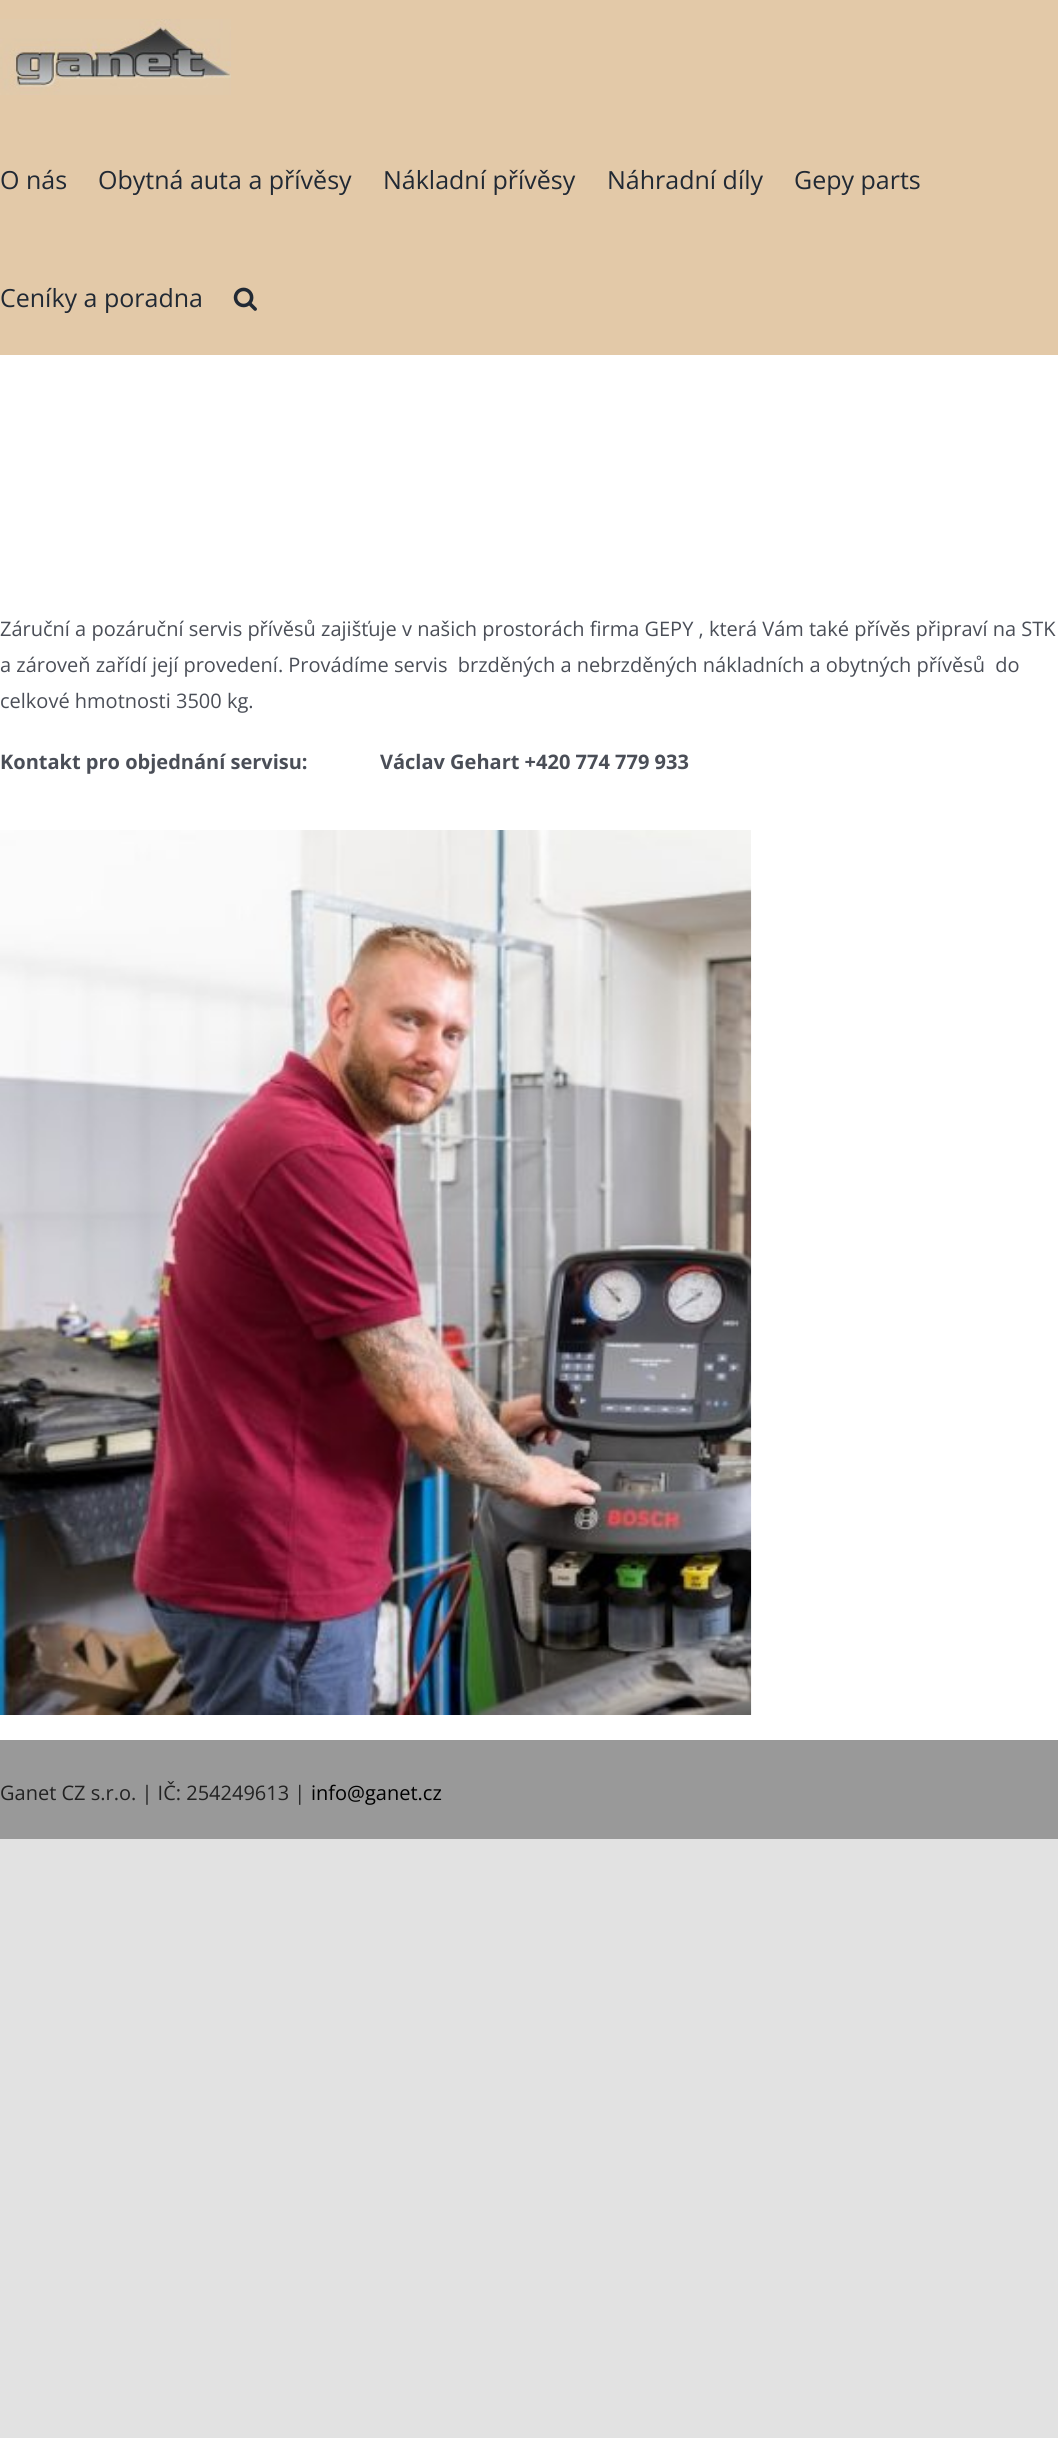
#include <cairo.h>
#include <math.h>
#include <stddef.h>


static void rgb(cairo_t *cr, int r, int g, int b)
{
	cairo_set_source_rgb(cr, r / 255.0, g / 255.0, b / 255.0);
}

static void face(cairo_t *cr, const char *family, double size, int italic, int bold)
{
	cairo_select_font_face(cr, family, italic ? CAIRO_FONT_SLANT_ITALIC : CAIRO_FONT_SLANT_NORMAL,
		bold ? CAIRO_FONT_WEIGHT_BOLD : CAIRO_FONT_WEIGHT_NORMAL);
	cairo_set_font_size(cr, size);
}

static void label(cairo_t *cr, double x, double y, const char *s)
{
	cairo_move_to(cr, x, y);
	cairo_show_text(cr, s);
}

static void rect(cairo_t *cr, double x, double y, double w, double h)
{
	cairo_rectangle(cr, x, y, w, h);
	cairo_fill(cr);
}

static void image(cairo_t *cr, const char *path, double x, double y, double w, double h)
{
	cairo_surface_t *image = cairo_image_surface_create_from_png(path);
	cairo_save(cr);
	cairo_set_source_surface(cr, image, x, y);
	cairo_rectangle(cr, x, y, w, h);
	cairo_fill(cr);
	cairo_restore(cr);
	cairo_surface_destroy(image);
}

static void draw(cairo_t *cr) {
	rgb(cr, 226, 226, 226);
	cairo_paint(cr);
	rgb(cr, 255, 255, 255);
	rect(cr, 0, 355, 1058, 1385);
	rgb(cr, 227, 201, 168);
	rect(cr, 0, 0, 1058, 355);
	image(cr, "image0.png", 0, 19, 231, 76);
	face(cr, "Open Sans", 25, 0, 0);
	rgb(cr, 33, 41, 52);
	label(cr, 0, 189, "O nás");
	label(cr, 98, 189, "Obytná auta a přívěsy");
	label(cr, 383, 189, "Nákladní přívěsy");
	label(cr, 607, 189, "Náhradní díly");
	label(cr, 794, 189, "Gepy parts");
	label(cr, 0, 307, "Ceníky a poradna");
	image(cr, "image1.png", 233, 287, 24, 24);
	face(cr, "Open Sans", 20, 0, 0);
	rgb(cr, 74, 78, 87);
	label(cr, 0, 636, "Záruční a pozáruční servis přívěsů zajišťuje v našich prostorách firma GEPY , která Vám také přívěs připraví na STK");
	label(cr, 0, 672, "a zároveň zařídí její provedení. Provádíme servis  brzděných a nebrzděných nákladních a obytných přívěsů  do");
	label(cr, 0, 708, "celkové hmotnosti 3500 kg.");
	face(cr, "Open Sans", 20, 0, 1);
	label(cr, 0, 769, "Kontakt pro objednání servisu:");
	label(cr, 380, 769, "Václav Gehart +420 774 779 933");
	image(cr, "image2.png", 0, 830, 752, 885);
	rgb(cr, 153, 153, 153);
	rect(cr, 0, 1740, 1058, 99);
	face(cr, "Open Sans", 20, 0, 0);
	rgb(cr, 34, 34, 34);
	label(cr, 0, 1800, "Ganet CZ s.r.o. | IČ: 254249613 |");
	rgb(cr, 0, 0, 0);
	label(cr, 311, 1800, "info@ganet.cz");
}

int main(void) {
	cairo_surface_t *surface = cairo_image_surface_create(CAIRO_FORMAT_RGB24, 1058, 2438);
	cairo_t *cr = cairo_create(surface);
	cairo_font_options_t *options = cairo_font_options_create();
	cairo_font_options_set_hint_metrics(options, CAIRO_HINT_METRICS_OFF);
	cairo_font_options_set_hint_style(options, CAIRO_HINT_STYLE_NONE);
	cairo_set_font_options(cr, options);
	cairo_set_miter_limit(cr, 4);
	draw(cr);
	cairo_surface_write_to_png(surface, "render.png");
	cairo_font_options_destroy(options);
	cairo_destroy(cr);
	cairo_surface_destroy(surface);
	return 0;
}
